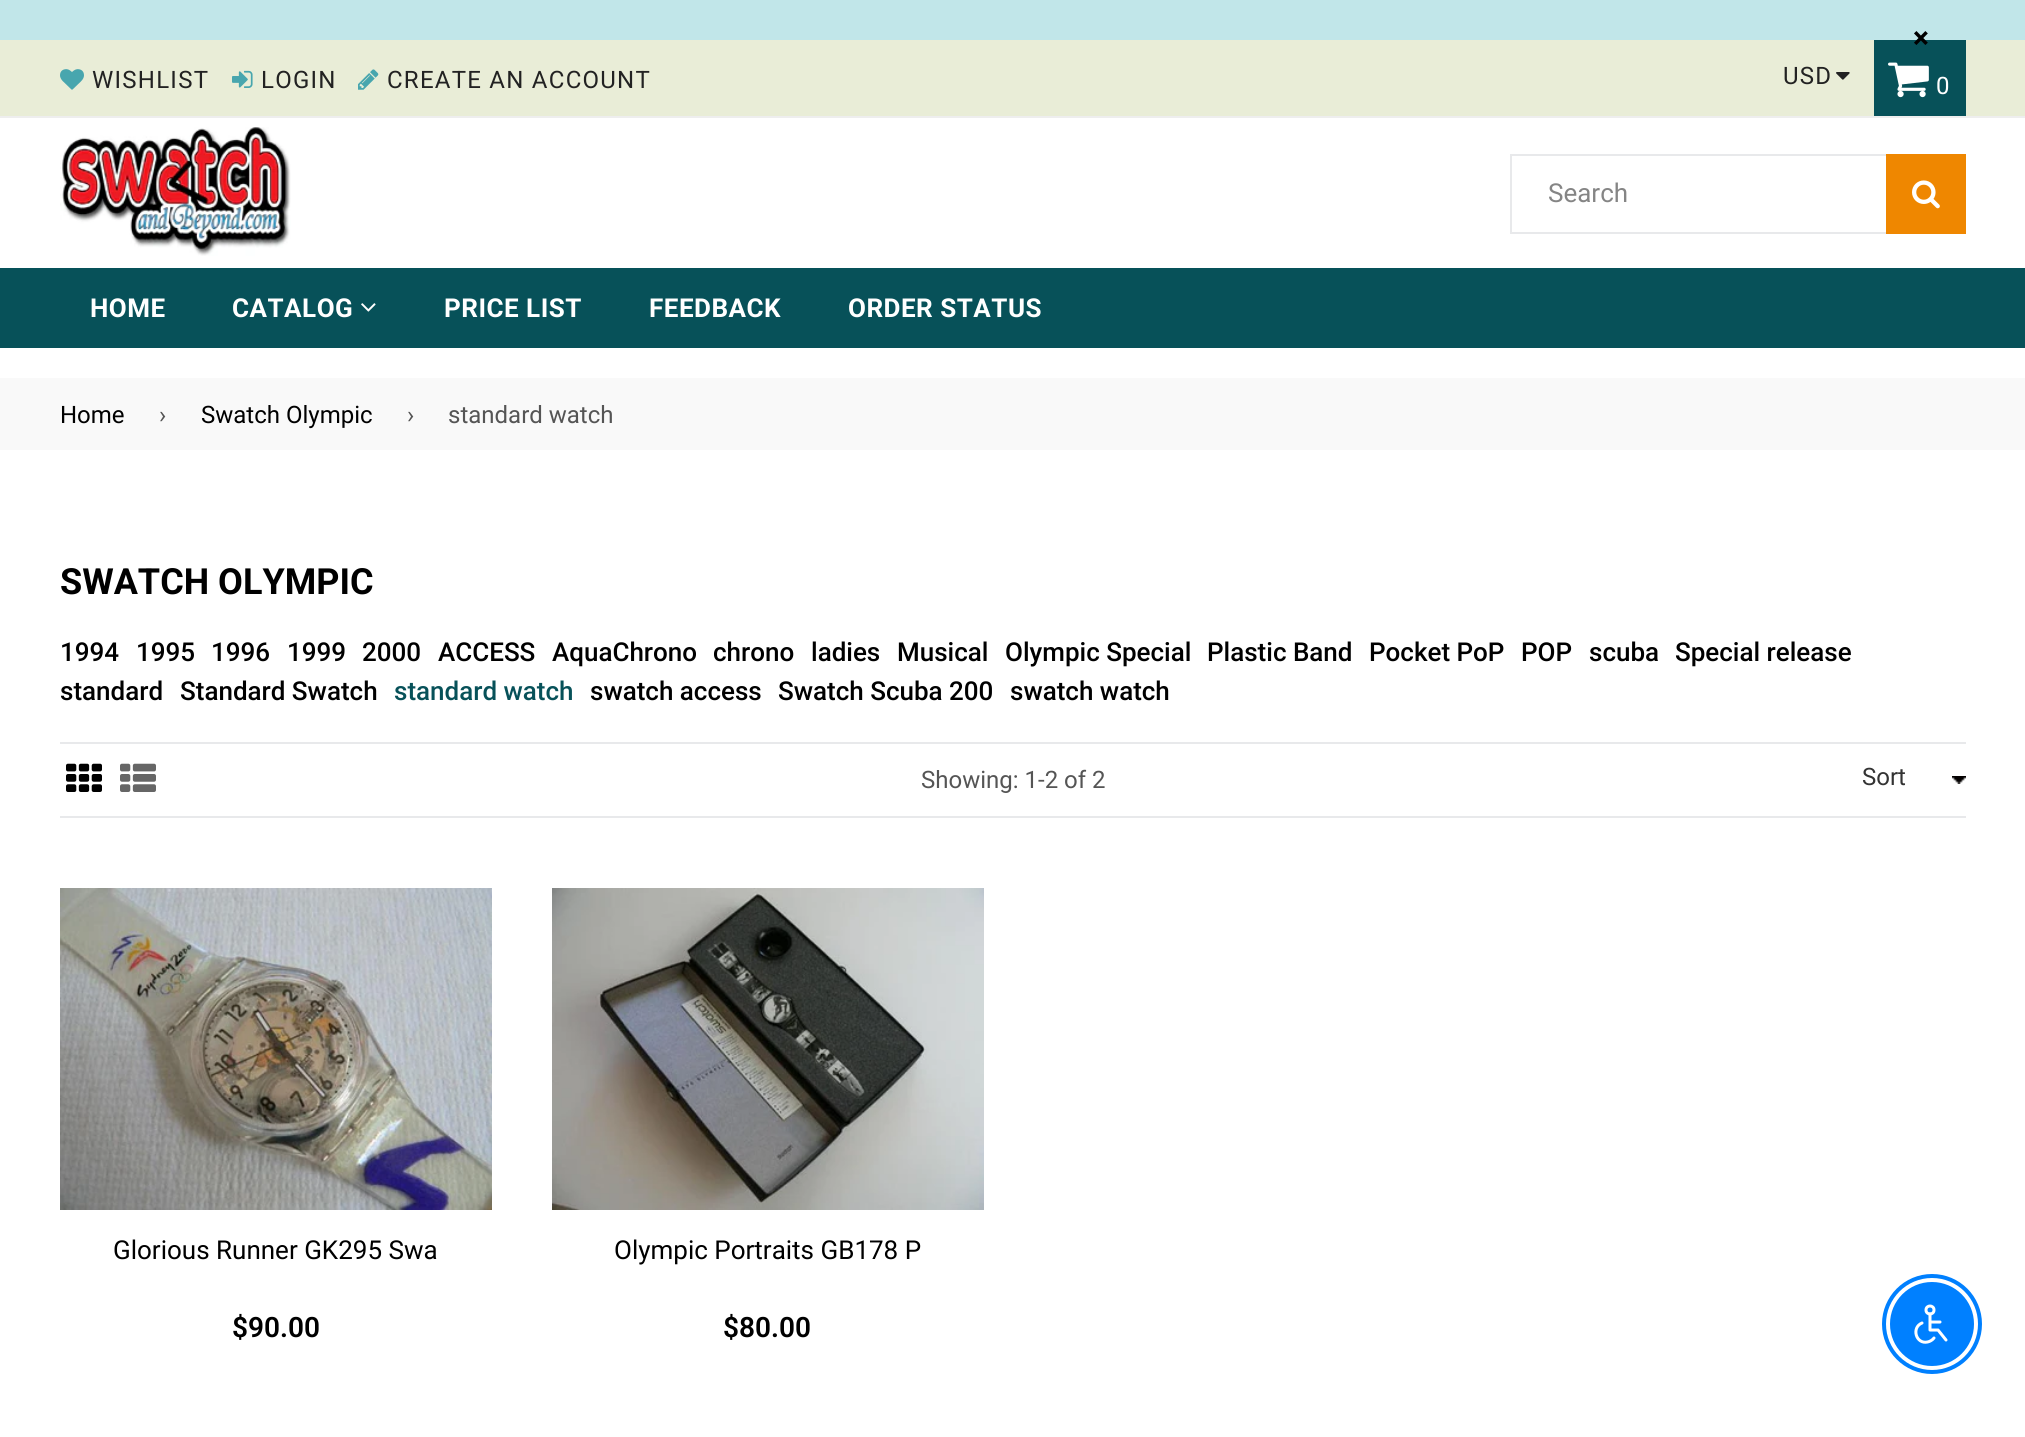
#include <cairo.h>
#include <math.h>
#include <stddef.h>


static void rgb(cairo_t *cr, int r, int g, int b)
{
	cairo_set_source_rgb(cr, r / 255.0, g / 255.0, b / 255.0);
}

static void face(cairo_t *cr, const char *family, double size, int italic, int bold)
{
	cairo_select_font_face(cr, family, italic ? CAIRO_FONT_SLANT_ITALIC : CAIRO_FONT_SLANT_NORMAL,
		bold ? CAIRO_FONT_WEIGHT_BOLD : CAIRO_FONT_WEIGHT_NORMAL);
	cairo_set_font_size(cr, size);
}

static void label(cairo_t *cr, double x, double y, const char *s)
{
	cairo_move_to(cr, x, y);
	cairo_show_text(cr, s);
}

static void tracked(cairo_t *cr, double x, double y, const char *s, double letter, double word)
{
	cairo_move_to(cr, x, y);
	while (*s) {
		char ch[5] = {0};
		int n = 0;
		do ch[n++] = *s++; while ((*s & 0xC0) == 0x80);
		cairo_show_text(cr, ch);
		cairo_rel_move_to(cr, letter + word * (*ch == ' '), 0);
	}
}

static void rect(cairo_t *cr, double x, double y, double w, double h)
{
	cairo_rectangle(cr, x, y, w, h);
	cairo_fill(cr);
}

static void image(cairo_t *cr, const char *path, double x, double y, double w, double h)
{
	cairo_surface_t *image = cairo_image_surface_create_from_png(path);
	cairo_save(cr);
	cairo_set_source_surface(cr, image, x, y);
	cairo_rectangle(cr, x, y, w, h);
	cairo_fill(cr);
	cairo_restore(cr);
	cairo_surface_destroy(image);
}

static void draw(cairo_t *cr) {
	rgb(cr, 255, 255, 255);
	cairo_paint(cr);
	rgb(cr, 193, 230, 233);
	rect(cr, 0, 0, 2025, 40);
	rgb(cr, 233, 237, 215);
	rect(cr, 0, 40, 2025, 76);
	rgb(cr, 7, 81, 89);
	rect(cr, 1874, 40, 92, 76);
	face(cr, "Roboto", 30, 0, 1);
	rgb(cr, 0, 0, 0);
	label(cr, 1913, 48, "×");
	rgb(cr, 238, 238, 238);
	rect(cr, 0, 116, 2025, 2);
	image(cr, "image0.png", 60, 69, 24, 21);
	face(cr, "Roboto", 24, 0, 0);
	rgb(cr, 34, 34, 34);
	tracked(cr, 92, 88, "WISHLIST", 1.25, 0);
	image(cr, "image1.png", 232, 70, 21, 18);
	tracked(cr, 261, 88, "LOGIN", 1.25, 0);
	image(cr, "image2.png", 358, 69, 21, 21);
	tracked(cr, 387, 88, "CREATE AN ACCOUNT", 1.25, 0);
	tracked(cr, 1783, 84, "USD", 1.25, 0);
	image(cr, "image3.png", 1836, 72, 14, 8);
	image(cr, "image4.png", 1888, 62, 41, 36);
	rgb(cr, 255, 255, 255);
	tracked(cr, 1936, 94, "0", 2, 0);
	image(cr, "image5.png", 60, 127, 231, 129);
	rgb(cr, 232, 233, 235);
	rect(cr, 1510, 154, 376, 2);
	rect(cr, 1510, 232, 376, 2);
	rect(cr, 1510, 154, 2, 80);
	face(cr, "Roboto", 26, 0, 0);
	rgb(cr, 133, 133, 133);
	label(cr, 1548, 202, "Search");
	rgb(cr, 239, 135, 0);
	rect(cr, 1886, 154, 80, 80);
	image(cr, "image6.png", 1912, 180, 28, 29);
	rgb(cr, 7, 81, 89);
	rect(cr, 0, 268, 2025, 80);
	face(cr, "Roboto", 26, 0, 1);
	rgb(cr, 255, 255, 255);
	tracked(cr, 90, 317, "HOME", 0.5, 0);
	tracked(cr, 232, 317, "CATALOG", 0.5, 0);
	image(cr, "image7.png", 361, 303, 15, 9);
	tracked(cr, 444, 317, "PRICE LIST", 0.5, 0);
	tracked(cr, 649, 317, "FEEDBACK", 0.5, 0);
	tracked(cr, 848, 317, "ORDER STATUS", 0.5, 0);
	rgb(cr, 249, 249, 249);
	rect(cr, 0, 378, 2025, 72);
	face(cr, "Roboto", 24, 0, 0);
	rgb(cr, 0, 0, 0);
	label(cr, 60, 423, "Home");
	rgb(cr, 85, 85, 85);
	label(cr, 159, 423, "›");
	rgb(cr, 0, 0, 0);
	label(cr, 201, 423, "Swatch Olympic");
	rgb(cr, 85, 85, 85);
	label(cr, 407, 423, "›");
	label(cr, 448, 423, "standard watch");
	face(cr, "Roboto", 36, 0, 1);
	rgb(cr, 0, 0, 0);
	label(cr, 60, 594, "SWATCH OLYMPIC");
	face(cr, "Roboto Medium", 26, 0, 0);
	label(cr, 60, 661, "1994");
	label(cr, 136, 661, "1995");
	label(cr, 211, 661, "1996");
	label(cr, 287, 661, "1999");
	label(cr, 362, 661, "2000");
	label(cr, 438, 661, "ACCESS");
	label(cr, 552, 661, "AquaChrono");
	label(cr, 713, 661, "chrono");
	label(cr, 811, 661, "ladies");
	label(cr, 897, 661, "Musical");
	label(cr, 1005, 661, "Olympic Special");
	label(cr, 1207, 661, "Plastic Band");
	label(cr, 1369, 661, "Pocket PoP");
	label(cr, 1521, 661, "POP");
	label(cr, 1589, 661, "scuba");
	label(cr, 1675, 661, "Special release");
	label(cr, 60, 700, "standard");
	label(cr, 180, 700, "Standard Swatch");
	rgb(cr, 7, 81, 89);
	label(cr, 394, 700, "standard watch");
	rgb(cr, 0, 0, 0);
	label(cr, 590, 700, "swatch access");
	label(cr, 778, 700, "Swatch Scuba 200");
	label(cr, 1010, 700, "swatch watch");
	rgb(cr, 232, 233, 235);
	rect(cr, 60, 742, 1906, 2);
	rect(cr, 60, 816, 1906, 2);
	image(cr, "image8.png", 66, 763, 36, 29);
	image(cr, "image9.png", 120, 763, 36, 29);
	face(cr, "Roboto", 24, 0, 0);
	rgb(cr, 85, 85, 85);
	label(cr, 921, 788, "Showing: 1-2 of 2");
	image(cr, "image10.png", 1952, 776, 14, 8);
	rgb(cr, 51, 51, 51);
	label(cr, 1862, 785, "Sort");
	image(cr, "image11.png", 60, 888, 432, 322);
	face(cr, "Roboto", 26, 0, 0);
	rgb(cr, 0, 0, 0);
	label(cr, 113, 1259, "Glorious Runner GK295 Swa");
	face(cr, "Roboto SemiBold", 28, 0, 0);
	label(cr, 232, 1337, "$90.00");
	image(cr, "image12.png", 552, 888, 432, 322);
	face(cr, "Roboto", 26, 0, 0);
	label(cr, 614, 1259, "Olympic Portraits GB178 P");
	face(cr, "Roboto SemiBold", 28, 0, 0);
	label(cr, 723, 1337, "$80.00");
	cairo_new_path(cr);
	cairo_arc(cr, 1932, 1324, 48, 0, 2 * M_PI);
	rgb(cr, 0, 128, 255);
	cairo_set_line_width(cr, 4);
	cairo_stroke(cr);
	cairo_arc(cr, 1932, 1324, 41, 0, 2 * M_PI);
	cairo_fill_preserve(cr);
	cairo_set_line_width(cr, 2);
	cairo_stroke(cr);
	cairo_arc(cr, 1930, 1310, 4, 0, 2 * M_PI);
	rgb(cr, 255, 255, 255);
	cairo_set_line_width(cr, 3);
	cairo_stroke(cr);
	cairo_new_path(cr);
	cairo_move_to(cr, 1930, 1314);
	cairo_line_to(cr, 1930, 1330);
	cairo_line_to(cr, 1938, 1330);
	cairo_line_to(cr, 1946, 1340);
	cairo_move_to(cr, 1930, 1322);
	cairo_line_to(cr, 1940, 1322);
	cairo_move_to(cr, 1922, 1323);
	cairo_curve_to(cr, 1911, 1327.5, 1916, 1344.5, 1927.5, 1342);
	cairo_curve_to(cr, 1930, 1341.5, 1932.5, 1340, 1934, 1338);
	cairo_set_line_cap(cr, CAIRO_LINE_CAP_ROUND);
	cairo_set_line_join(cr, CAIRO_LINE_JOIN_ROUND);
	cairo_stroke(cr);
}

int main(void) {
	cairo_surface_t *surface = cairo_image_surface_create(CAIRO_FORMAT_RGB24, 2025, 1437);
	cairo_t *cr = cairo_create(surface);
	cairo_font_options_t *options = cairo_font_options_create();
	cairo_font_options_set_hint_metrics(options, CAIRO_HINT_METRICS_OFF);
	cairo_font_options_set_hint_style(options, CAIRO_HINT_STYLE_NONE);
	cairo_set_font_options(cr, options);
	cairo_set_miter_limit(cr, 4);
	draw(cr);
	cairo_surface_write_to_png(surface, "render.png");
	cairo_font_options_destroy(options);
	cairo_destroy(cr);
	cairo_surface_destroy(surface);
	return 0;
}
